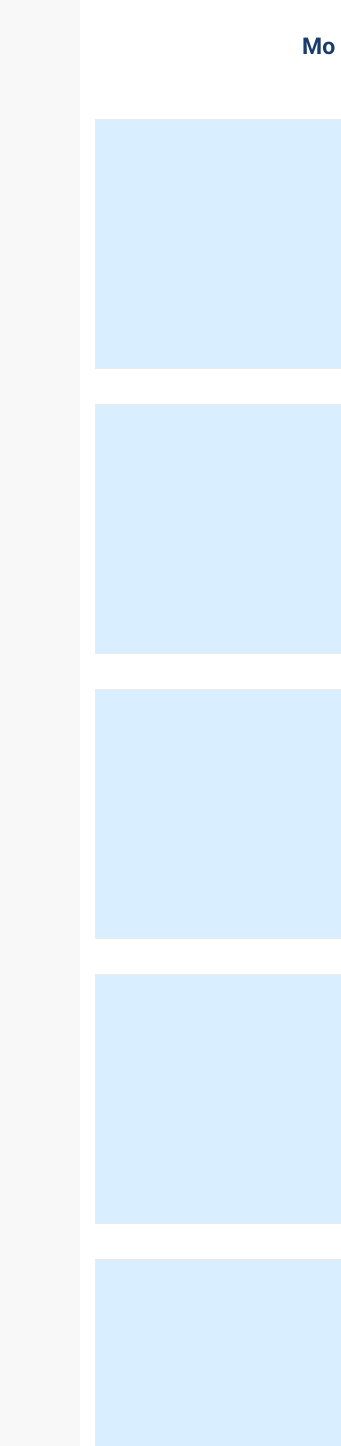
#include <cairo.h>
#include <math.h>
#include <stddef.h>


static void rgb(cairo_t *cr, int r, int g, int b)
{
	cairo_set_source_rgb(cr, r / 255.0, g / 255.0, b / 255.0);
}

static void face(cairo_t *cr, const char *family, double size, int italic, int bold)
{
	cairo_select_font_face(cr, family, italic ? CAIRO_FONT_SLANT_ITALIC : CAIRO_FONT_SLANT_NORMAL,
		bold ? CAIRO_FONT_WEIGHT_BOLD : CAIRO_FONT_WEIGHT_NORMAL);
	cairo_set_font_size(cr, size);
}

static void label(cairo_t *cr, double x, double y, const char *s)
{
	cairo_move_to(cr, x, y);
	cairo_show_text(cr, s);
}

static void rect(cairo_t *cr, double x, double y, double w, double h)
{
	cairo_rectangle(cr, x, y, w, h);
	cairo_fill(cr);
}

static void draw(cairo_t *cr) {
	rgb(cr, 248, 248, 248);
	cairo_paint(cr);
	rgb(cr, 255, 255, 255);
	rect(cr, 80, 0, 261, 1446);
	face(cr, "Roboto", 23, 0, 1);
	rgb(cr, 24, 61, 109);
	label(cr, 302, 54, "Mo");
	rgb(cr, 217, 239, 255);
	cairo_rectangle(cr, 95.5, 119.5, 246, 249);
	cairo_fill_preserve(cr);
	rgb(cr, 235, 235, 235);
	cairo_set_line_width(cr, 1);
	cairo_stroke(cr);
	rgb(cr, 217, 239, 255);
	cairo_rectangle(cr, 95.5, 404.5, 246, 249);
	cairo_fill_preserve(cr);
	rgb(cr, 235, 235, 235);
	cairo_stroke(cr);
	rgb(cr, 217, 239, 255);
	cairo_rectangle(cr, 95.5, 689.5, 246, 249);
	cairo_fill_preserve(cr);
	rgb(cr, 235, 235, 235);
	cairo_stroke(cr);
	rgb(cr, 217, 239, 255);
	cairo_rectangle(cr, 95.5, 974.5, 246, 249);
	cairo_fill_preserve(cr);
	rgb(cr, 235, 235, 235);
	cairo_stroke(cr);
	rgb(cr, 217, 239, 255);
	cairo_rectangle(cr, 95.5, 1259.5, 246, 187);
	cairo_fill_preserve(cr);
	rgb(cr, 235, 235, 235);
	cairo_stroke(cr);
}

int main(void) {
	cairo_surface_t *surface = cairo_image_surface_create(CAIRO_FORMAT_RGB24, 341, 1446);
	cairo_t *cr = cairo_create(surface);
	cairo_font_options_t *options = cairo_font_options_create();
	cairo_font_options_set_hint_metrics(options, CAIRO_HINT_METRICS_OFF);
	cairo_font_options_set_hint_style(options, CAIRO_HINT_STYLE_NONE);
	cairo_set_font_options(cr, options);
	cairo_set_miter_limit(cr, 4);
	draw(cr);
	cairo_surface_write_to_png(surface, "render.png");
	cairo_font_options_destroy(options);
	cairo_destroy(cr);
	cairo_surface_destroy(surface);
	return 0;
}
